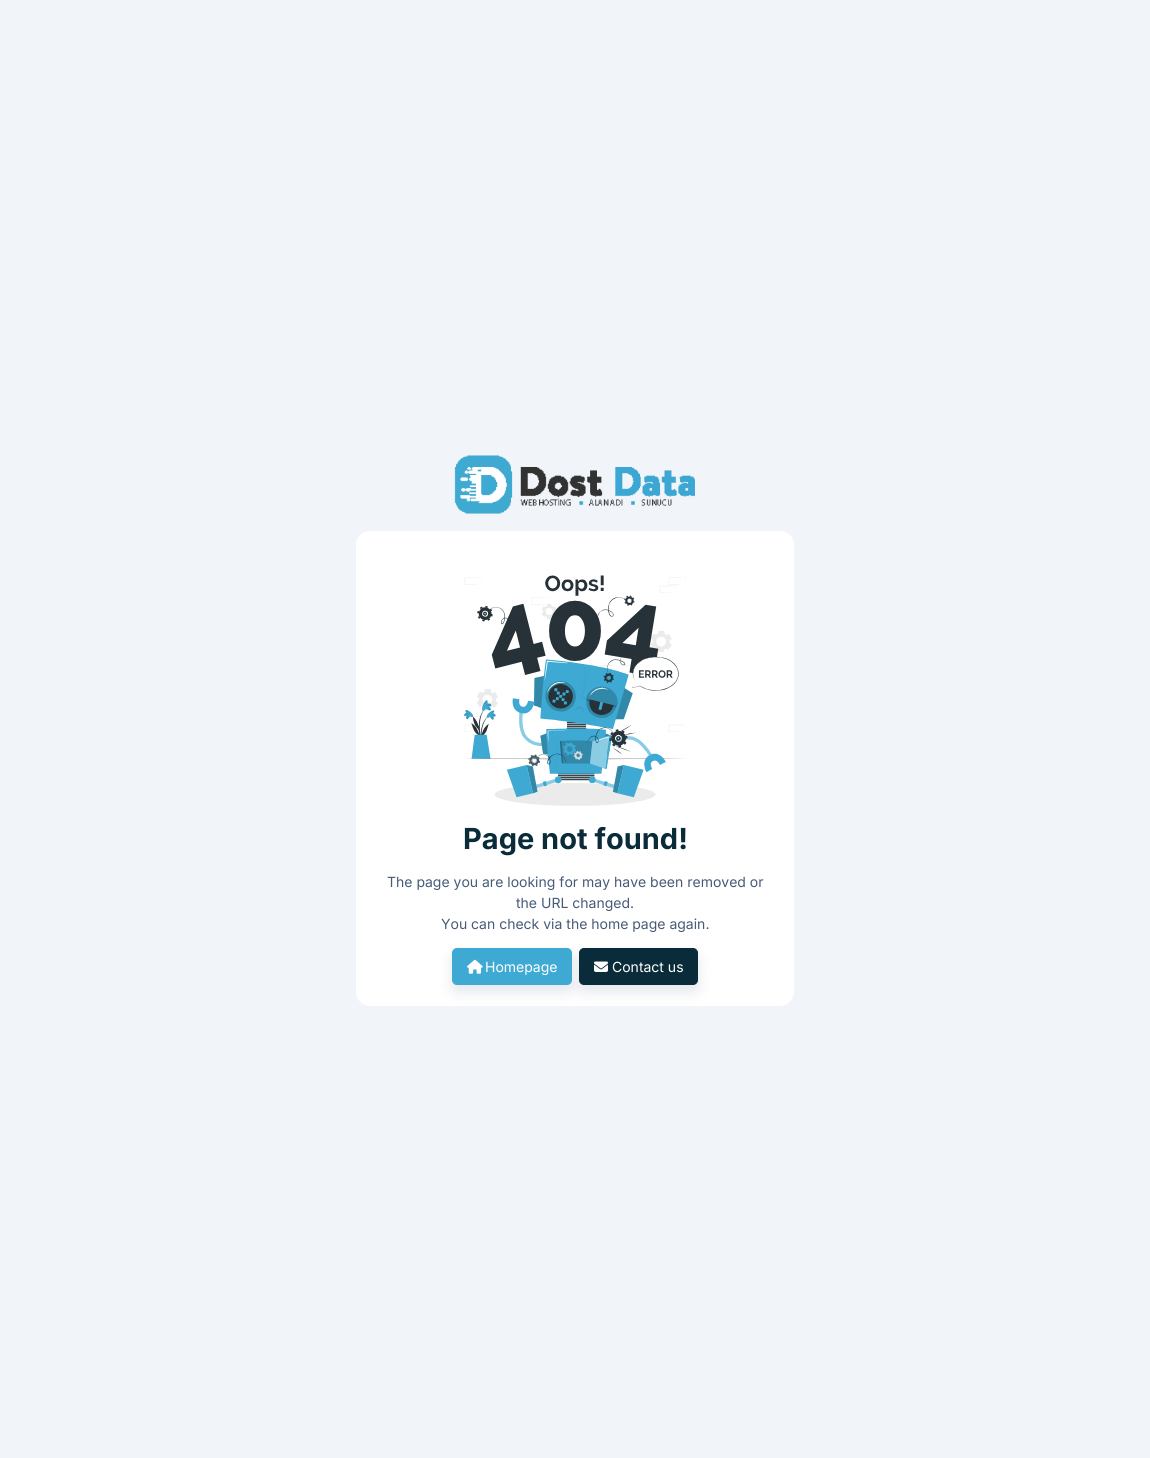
#include <cairo.h>
#include <math.h>
#include <stddef.h>


static void rgb(cairo_t *cr, int r, int g, int b)
{
	cairo_set_source_rgb(cr, r / 255.0, g / 255.0, b / 255.0);
}

static void face(cairo_t *cr, const char *family, double size, int italic, int bold)
{
	cairo_select_font_face(cr, family, italic ? CAIRO_FONT_SLANT_ITALIC : CAIRO_FONT_SLANT_NORMAL,
		bold ? CAIRO_FONT_WEIGHT_BOLD : CAIRO_FONT_WEIGHT_NORMAL);
	cairo_set_font_size(cr, size);
}

static void label(cairo_t *cr, double x, double y, const char *s)
{
	cairo_move_to(cr, x, y);
	cairo_show_text(cr, s);
}

static void rrect(cairo_t *cr, double x, double y, double w, double h, double r)
{
	cairo_new_sub_path(cr);
	cairo_arc(cr, x + w - r, y + h - r, r, 0, M_PI / 2);
	cairo_arc(cr, x + r, y + h - r, r, M_PI / 2, M_PI);
	cairo_arc(cr, x + r, y + r, r, M_PI, 1.5 * M_PI);
	cairo_arc(cr, x + w - r, y + r, r, 1.5 * M_PI, 2 * M_PI);
	cairo_close_path(cr);
}

static void soft_shadow(cairo_t *cr, double x, double y, double w, double h, double r, double blur, double alpha)
{
	cairo_push_group_with_content(cr, CAIRO_CONTENT_ALPHA);
	cairo_set_operator(cr, CAIRO_OPERATOR_SOURCE);
	for (int i = 15; i >= -15 && fmin(w, h) + blur * i / 3 > 0; i -= 2) {
		double e = blur * i / 6;
		cairo_set_source_rgba(cr, 0, 0, 0, alpha * erfc((i - 1) / 8.5) / 2);
		rrect(cr, x - e, y - e, w + 2 * e, h + 2 * e, fmax(0, fmin(r + e + blur * .6, fmin(w, h) / 2 + e)));
		cairo_fill(cr);
	}
	cairo_pattern_t *soft = cairo_pop_group(cr);
	cairo_mask(cr, soft);
	cairo_pattern_destroy(soft);
}

static void image(cairo_t *cr, const char *path, double x, double y, double w, double h)
{
	cairo_surface_t *image = cairo_image_surface_create_from_png(path);
	cairo_save(cr);
	cairo_set_source_surface(cr, image, x, y);
	cairo_rectangle(cr, x, y, w, h);
	cairo_fill(cr);
	cairo_restore(cr);
	cairo_surface_destroy(image);
}

static void draw(cairo_t *cr) {
	rgb(cr, 241, 245, 249);
	cairo_paint(cr);
	image(cr, "image0.png", 454, 455, 241, 59);
	rgb(cr, 255, 255, 255);
	rrect(cr, 356, 531, 438, 475, 14);
	cairo_fill(cr);
	image(cr, "image1.png", 464, 575, 222, 231);
	face(cr, "Inter", 29, 0, 1);
	rgb(cr, 10, 43, 57);
	label(cr, 463, 849, "Page not found!");
	face(cr, "Inter", 14, 0, 0);
	rgb(cr, 71, 91, 119);
	label(cr, 387, 887, "The page you are looking for may have been removed or");
	label(cr, 516, 908, "the URL changed.");
	label(cr, 441, 929, "You can check via the home page again.");
	rgb(cr, 71, 91, 119);
	soft_shadow(cr, 452, 955, 120, 37, 5, 7, 0.15);
	rgb(cr, 62, 170, 212);
	rrect(cr, 452.5, 948.5, 119, 36, 4.5);
	cairo_fill_preserve(cr);
	cairo_set_line_width(cr, 1);
	cairo_stroke(cr);
	image(cr, "image2.png", 467, 959, 16, 15);
	rgb(cr, 255, 255, 255);
	label(cr, 485, 972, "Homepage");
	rgb(cr, 71, 91, 119);
	soft_shadow(cr, 579, 955, 119, 37, 5, 7, 0.15);
	rgb(cr, 10, 43, 57);
	rrect(cr, 579.5, 948.5, 118, 36, 4.5);
	cairo_fill_preserve(cr);
	cairo_stroke(cr);
	image(cr, "image3.png", 594, 961, 14, 11);
	rgb(cr, 255, 255, 255);
	label(cr, 612, 972, "Contact us");
}

int main(void) {
	cairo_surface_t *surface = cairo_image_surface_create(CAIRO_FORMAT_RGB24, 1150, 1458);
	cairo_t *cr = cairo_create(surface);
	cairo_font_options_t *options = cairo_font_options_create();
	cairo_font_options_set_hint_metrics(options, CAIRO_HINT_METRICS_OFF);
	cairo_font_options_set_hint_style(options, CAIRO_HINT_STYLE_NONE);
	cairo_set_font_options(cr, options);
	cairo_set_miter_limit(cr, 4);
	draw(cr);
	cairo_surface_write_to_png(surface, "render.png");
	cairo_font_options_destroy(options);
	cairo_destroy(cr);
	cairo_surface_destroy(surface);
	return 0;
}
